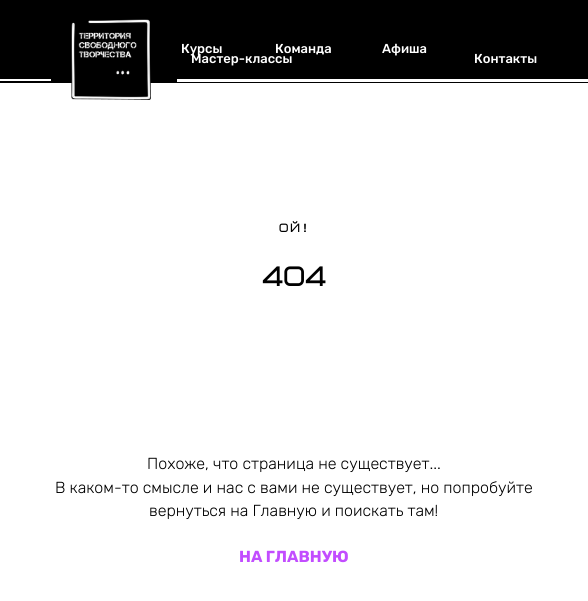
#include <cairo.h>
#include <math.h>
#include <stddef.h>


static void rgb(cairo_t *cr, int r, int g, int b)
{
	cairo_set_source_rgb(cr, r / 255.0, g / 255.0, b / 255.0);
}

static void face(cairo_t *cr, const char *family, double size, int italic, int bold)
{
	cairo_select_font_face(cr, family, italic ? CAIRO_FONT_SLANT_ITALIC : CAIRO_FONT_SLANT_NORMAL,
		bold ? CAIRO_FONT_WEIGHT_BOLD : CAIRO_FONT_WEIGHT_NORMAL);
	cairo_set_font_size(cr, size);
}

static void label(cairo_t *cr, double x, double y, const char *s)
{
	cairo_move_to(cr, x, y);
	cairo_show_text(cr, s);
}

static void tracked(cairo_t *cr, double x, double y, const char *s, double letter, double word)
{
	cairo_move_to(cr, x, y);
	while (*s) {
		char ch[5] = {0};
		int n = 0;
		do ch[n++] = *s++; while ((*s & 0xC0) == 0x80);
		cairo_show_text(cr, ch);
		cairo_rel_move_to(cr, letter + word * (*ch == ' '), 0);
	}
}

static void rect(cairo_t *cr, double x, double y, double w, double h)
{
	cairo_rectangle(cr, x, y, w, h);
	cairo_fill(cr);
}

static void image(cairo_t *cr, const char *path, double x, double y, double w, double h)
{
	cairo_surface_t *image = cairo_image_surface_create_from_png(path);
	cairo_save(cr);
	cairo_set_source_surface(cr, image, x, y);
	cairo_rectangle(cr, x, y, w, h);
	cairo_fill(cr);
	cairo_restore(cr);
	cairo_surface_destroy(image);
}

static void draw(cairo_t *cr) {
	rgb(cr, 255, 255, 255);
	cairo_paint(cr);
	rgb(cr, 0, 0, 0);
	rect(cr, 0, 0, 588, 83);
	image(cr, "image0.png", 71, 19, 80, 81);
	face(cr, "Rubik Medium", 13, 0, 0);
	rgb(cr, 255, 255, 255);
	label(cr, 181, 53, "Курсы");
	label(cr, 275, 53, "Команда");
	label(cr, 382, 53, "Афиша");
	label(cr, 191, 63, "Мастер-классы");
	label(cr, 474, 63, "Контакты");
	rect(cr, 0, 79, 51, 2);
	rect(cr, 177, 79, 411, 3);
	face(cr, "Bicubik", 12, 0, 0);
	rgb(cr, 0, 0, 0);
	tracked(cr, 279, 232, "ой", 2, 0);
	face(cr, "Liberation Sans", 12, 0, 1);
	tracked(cr, 303, 232, "!", 2, 0);
	face(cr, "Bicubik", 28, 0, 0);
	label(cr, 262, 286, "404");
	face(cr, "Rubik Light", 16, 0, 0);
	label(cr, 147, 469, "Похоже, что страница не существует...");
	label(cr, 55, 493, "В каком-то смысле и нас с вами не существует, но попробуйте");
	label(cr, 149, 516, "вернуться на Главную и поискать там!");
	face(cr, "Rubik", 16, 0, 1);
	rgb(cr, 194, 77, 255);
	label(cr, 239, 562, "НА ГЛАВНУЮ");
}

int main(void) {
	cairo_surface_t *surface = cairo_image_surface_create(CAIRO_FORMAT_RGB24, 588, 601);
	cairo_t *cr = cairo_create(surface);
	cairo_font_options_t *options = cairo_font_options_create();
	cairo_font_options_set_hint_metrics(options, CAIRO_HINT_METRICS_OFF);
	cairo_font_options_set_hint_style(options, CAIRO_HINT_STYLE_NONE);
	cairo_set_font_options(cr, options);
	cairo_set_miter_limit(cr, 4);
	draw(cr);
	cairo_surface_write_to_png(surface, "render.png");
	cairo_font_options_destroy(options);
	cairo_destroy(cr);
	cairo_surface_destroy(surface);
	return 0;
}
